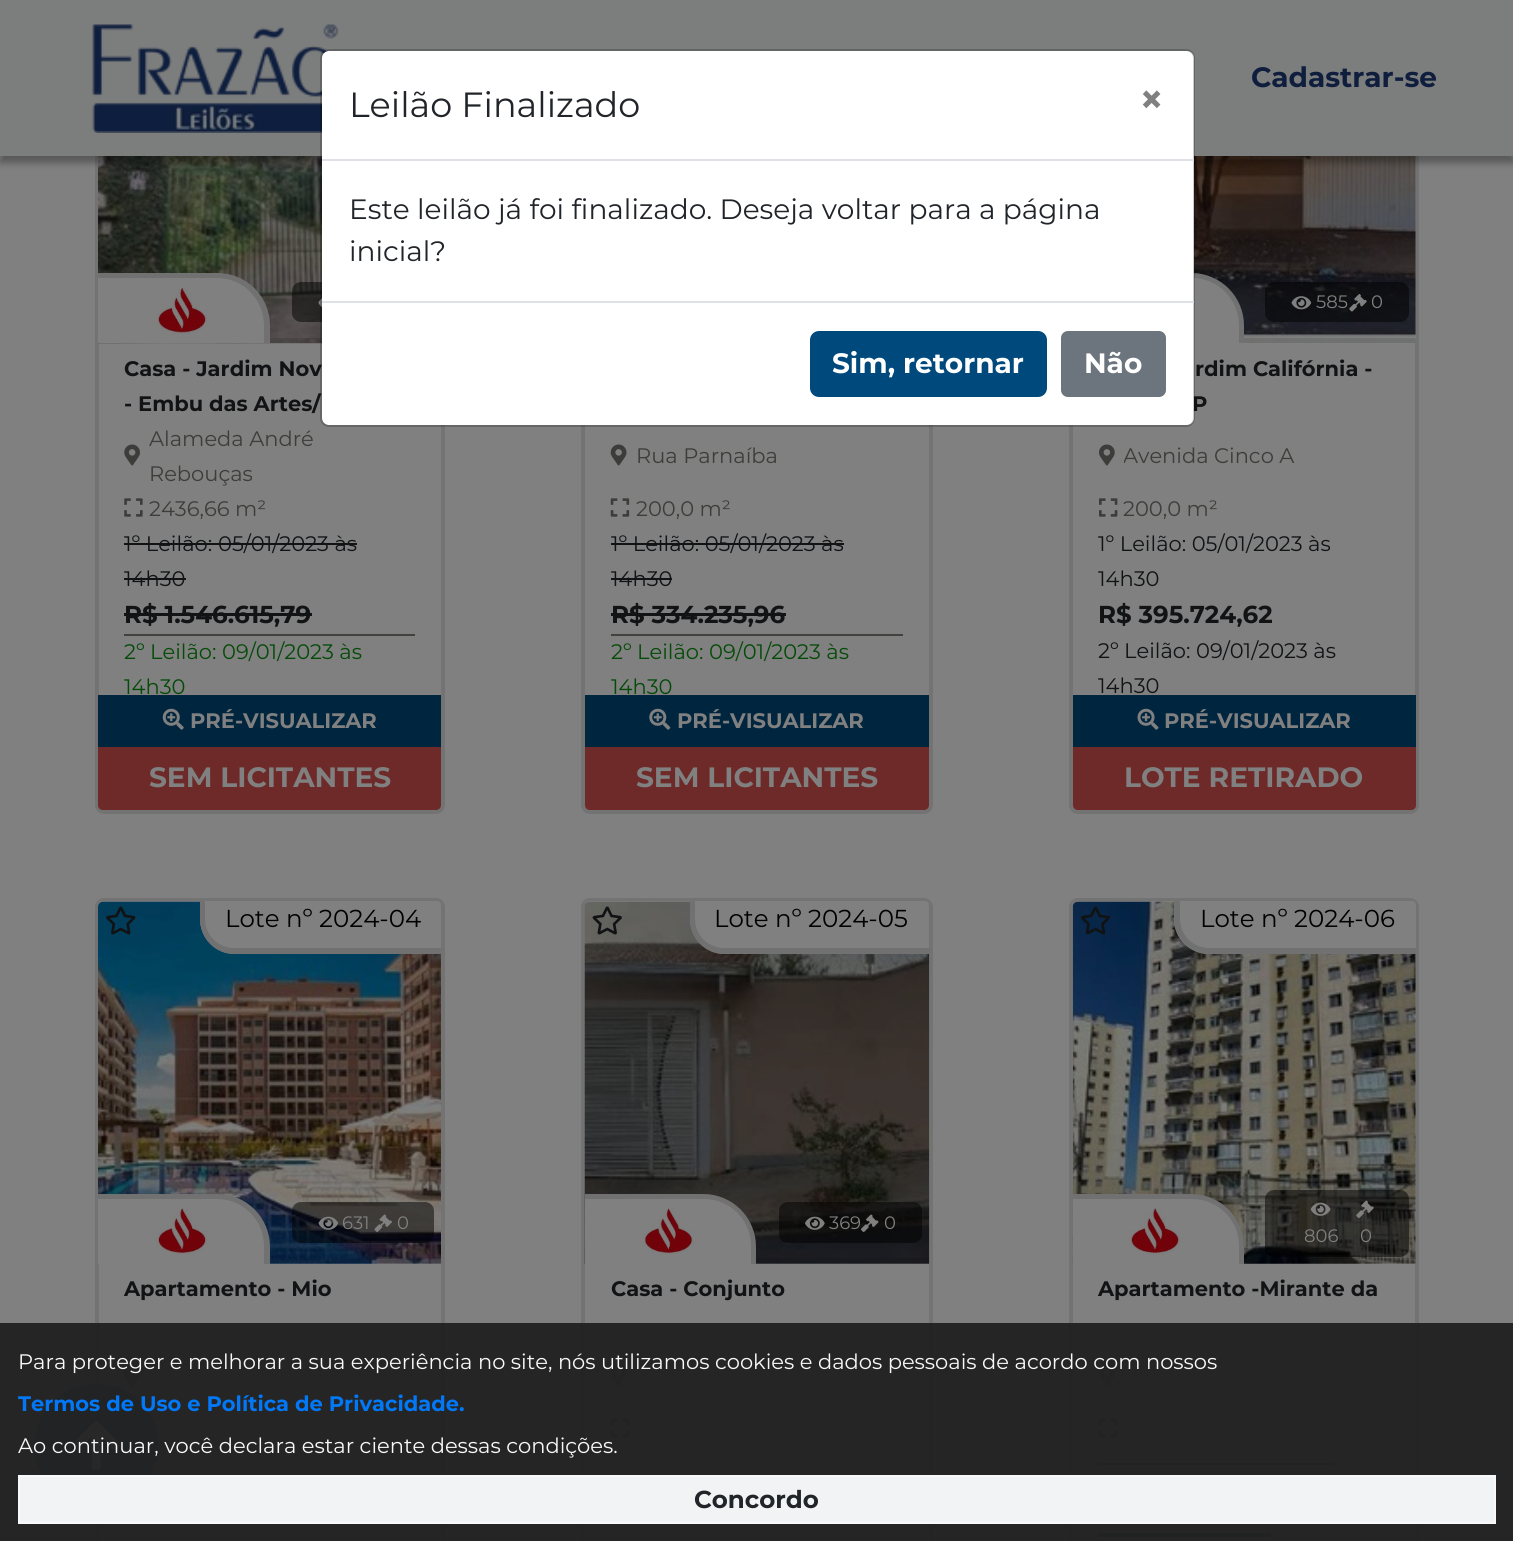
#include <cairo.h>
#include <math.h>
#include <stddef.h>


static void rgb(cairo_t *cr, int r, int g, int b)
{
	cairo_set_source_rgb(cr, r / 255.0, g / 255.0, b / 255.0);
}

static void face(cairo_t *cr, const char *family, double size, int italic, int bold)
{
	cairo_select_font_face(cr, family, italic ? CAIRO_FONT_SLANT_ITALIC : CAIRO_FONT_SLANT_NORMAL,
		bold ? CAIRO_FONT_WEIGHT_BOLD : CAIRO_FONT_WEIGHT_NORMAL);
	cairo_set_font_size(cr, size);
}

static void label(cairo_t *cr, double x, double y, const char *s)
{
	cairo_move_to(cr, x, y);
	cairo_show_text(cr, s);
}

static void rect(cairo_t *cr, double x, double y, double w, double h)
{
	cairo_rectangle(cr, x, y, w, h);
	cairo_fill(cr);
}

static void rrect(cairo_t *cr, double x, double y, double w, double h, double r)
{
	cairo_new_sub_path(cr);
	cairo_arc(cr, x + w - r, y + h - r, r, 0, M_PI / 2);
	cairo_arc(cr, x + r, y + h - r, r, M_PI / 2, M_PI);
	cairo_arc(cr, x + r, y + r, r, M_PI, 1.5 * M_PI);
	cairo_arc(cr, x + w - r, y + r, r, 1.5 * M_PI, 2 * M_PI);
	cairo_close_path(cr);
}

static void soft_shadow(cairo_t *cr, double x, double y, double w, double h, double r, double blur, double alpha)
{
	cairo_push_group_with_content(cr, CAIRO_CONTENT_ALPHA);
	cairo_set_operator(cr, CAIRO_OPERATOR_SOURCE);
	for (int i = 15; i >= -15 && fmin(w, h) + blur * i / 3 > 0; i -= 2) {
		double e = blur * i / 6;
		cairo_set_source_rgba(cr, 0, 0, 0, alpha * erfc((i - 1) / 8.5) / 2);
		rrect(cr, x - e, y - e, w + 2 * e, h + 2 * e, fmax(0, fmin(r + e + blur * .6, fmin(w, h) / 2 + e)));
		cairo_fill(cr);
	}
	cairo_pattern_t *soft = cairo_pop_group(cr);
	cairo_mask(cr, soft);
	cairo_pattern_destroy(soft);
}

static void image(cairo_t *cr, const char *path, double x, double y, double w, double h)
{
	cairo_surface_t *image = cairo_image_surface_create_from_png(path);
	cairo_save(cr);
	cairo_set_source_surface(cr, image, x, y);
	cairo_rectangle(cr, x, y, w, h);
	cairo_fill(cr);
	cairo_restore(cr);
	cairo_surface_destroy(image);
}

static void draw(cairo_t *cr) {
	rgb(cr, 128, 128, 128);
	cairo_paint(cr);
	rrect(cr, 97, -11, 346, 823, 7);
	rgb(cr, 115, 115, 115);
	cairo_set_line_width(cr, 4);
	cairo_stroke(cr);
	image(cr, "image1.png", 98, 156, 224, 188);
	rrect(cr, 583, -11, 348, 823, 7);
	cairo_stroke(cr);
	rrect(cr, 1071, -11, 346, 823, 7);
	cairo_stroke(cr);
	rgb(cr, 128, 128, 128);
	rect(cr, 1415, 156, 1, 187);
	image(cr, "image10.png", 1194, 156, 222, 187);
	rgb(cr, 0, 0, 0);
	soft_shadow(cr, 0, 7, 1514, 156, 0, 3.5, 0.31);
	rgb(cr, 124, 125, 125);
	rect(cr, 0, 0, 1513, 156);
	image(cr, "image0.png", 92, 24, 247, 109);
	face(cr, "Montserrat", 28, 0, 1);
	rgb(cr, 15, 30, 61);
	label(cr, 1251, 87, "Cadastrar-se");
	cairo_set_source_rgba(cr, 0, 0, 0, 0.5);
	rrect(cr, 292, 282, 142, 40, 9);
	cairo_fill(cr);
	face(cr, "Montserrat", 21, 0, 1);
	rgb(cr, 17, 19, 21);
	label(cr, 124, 376, "Casa - Jardim Nov");
	rgb(cr, 128, 128, 128);
	cairo_new_path(cr);
	cairo_move_to(cr, 1073, 273);
	cairo_line_to(cr, 1191, 273);
	cairo_curve_to(cr, 1220.5, 273, 1244, 296.5, 1244, 326);
	cairo_line_to(cr, 1244, 343);
	cairo_line_to(cr, 1073, 343);
	cairo_close_path(cr);
	cairo_fill(cr);
	cairo_set_source_rgba(cr, 0, 0, 0, 0.12);
	cairo_set_fill_rule(cr, CAIRO_FILL_RULE_EVEN_ODD);
	cairo_new_path(cr);
	cairo_move_to(cr, 1073, 273);
	cairo_line_to(cr, 1192, 273);
	cairo_curve_to(cr, 1221, 273, 1244, 297, 1244, 326);
	cairo_line_to(cr, 1244, 343);
	cairo_line_to(cr, 1073, 343);
	cairo_close_path(cr);
	cairo_move_to(cr, 1073, 278);
	cairo_line_to(cr, 1192, 278);
	cairo_curve_to(cr, 1218, 278, 1239, 299, 1239, 326);
	cairo_line_to(cr, 1239, 343);
	cairo_line_to(cr, 1073, 343);
	cairo_close_path(cr);
	cairo_fill(cr);
	rgb(cr, 17, 19, 21);
	label(cr, 1192, 411, "P");
	rgb(cr, 255, 255, 255);
	rrect(cr, 322, 51, 872, 374, 7);
	cairo_fill(cr);
	cairo_set_source_rgba(cr, 0, 0, 0, 0.12);
	rect(cr, 270, 338, 52, 5);
	image(cr, "image3.png", 318, 298, 4, 10);
	rgb(cr, 17, 19, 21);
	label(cr, 124, 411, "- Embu das Artes/");
	rrect(cr, 321, 50, 873, 376, 8);
	cairo_set_source_rgba(cr, 0, 0, 0, 0.2);
	cairo_set_line_width(cr, 2);
	cairo_stroke(cr);
	rgb(cr, 222, 226, 230);
	rect(cr, 322, 159, 872, 2);
	face(cr, "Montserrat", 35, 0, 0);
	rgb(cr, 33, 37, 41);
	label(cr, 349, 117, "Leilão Finalizado");
	face(cr, "Montserrat", 42, 0, 1);
	rgb(cr, 128, 128, 128);
	label(cr, 1139, 114, "×");
	face(cr, "Montserrat", 28, 0, 0);
	rgb(cr, 33, 37, 41);
	label(cr, 349, 219, "Este leilão já foi finalizado. Deseja voltar para a página");
	label(cr, 349, 261, "inicial?");
	rgb(cr, 222, 226, 230);
	rect(cr, 322, 301, 872, 2);
	rgb(cr, 0, 73, 125);
	rrect(cr, 810, 331, 237, 66, 9);
	cairo_fill(cr);
	face(cr, "Montserrat", 28, 0, 1);
	rgb(cr, 255, 255, 255);
	label(cr, 832, 373, "Sim, retornar");
	rgb(cr, 108, 117, 125);
	rrect(cr, 1062, 332, 103, 64, 6);
	cairo_fill_preserve(cr);
	cairo_stroke(cr);
	rgb(cr, 255, 255, 255);
	label(cr, 1084, 373, "Não");
	rgb(cr, 128, 128, 128);
	cairo_new_path(cr);
	cairo_move_to(cr, 98, 273);
	cairo_line_to(cr, 217, 273);
	cairo_curve_to(cr, 246.5, 273, 270, 296.5, 270, 326);
	cairo_line_to(cr, 270, 343);
	cairo_line_to(cr, 98, 343);
	cairo_close_path(cr);
	cairo_fill(cr);
	cairo_set_source_rgba(cr, 0, 0, 0, 0.12);
	cairo_new_path(cr);
	cairo_move_to(cr, 98, 273);
	cairo_line_to(cr, 217, 273);
	cairo_curve_to(cr, 246, 273, 270, 297, 270, 326);
	cairo_line_to(cr, 270, 343);
	cairo_line_to(cr, 98, 343);
	cairo_close_path(cr);
	cairo_move_to(cr, 98, 278);
	cairo_line_to(cr, 217, 278);
	cairo_curve_to(cr, 243, 278, 264, 299, 264, 326);
	cairo_line_to(cr, 264, 343);
	cairo_line_to(cr, 98, 343);
	cairo_close_path(cr);
	cairo_fill(cr);
	image(cr, "image2.png", 157, 287, 51, 48);
	image(cr, "image4.png", 124, 444, 16, 22);
	face(cr, "Montserrat", 21, 0, 0);
	rgb(cr, 61, 61, 58);
	label(cr, 149, 446, "Alameda André");
	label(cr, 149, 481, "Rebouças");
	image(cr, "image5.png", 124, 498, 19, 19);
	label(cr, 149, 516, "2436,66 m²");
	rgb(cr, 17, 19, 21);
	label(cr, 124, 551, "1º Leilão:");
	rect(cr, 124, 543, 95, 2);
	label(cr, 218, 551, "05/01/2023 às");
	rect(cr, 219, 543, 138, 2);
	label(cr, 124, 586, "14h30");
	rect(cr, 124, 578, 62, 2);
	face(cr, "Montserrat", 24.5, 0, 1);
	label(cr, 124, 623, "R$ 1.546.615,79");
	rect(cr, 124, 613, 188, 3);
	rgb(cr, 65, 65, 61);
	rect(cr, 124, 634, 291, 2);
	face(cr, "Montserrat", 21, 0, 0);
	rgb(cr, 5, 75, 8);
	label(cr, 124, 659, "2º Leilão: 09/01/2023 às");
	label(cr, 124, 694, "14h30");
	rgb(cr, 0, 37, 63);
	rect(cr, 98, 695, 343, 52);
	image(cr, "image6.png", 162, 708, 22, 22);
	face(cr, "Montserrat", 21, 0, 1);
	rgb(cr, 128, 128, 128);
	label(cr, 190, 728, "PRÉ-VISUALIZAR");
	rgb(cr, 109, 42, 40);
	cairo_new_path(cr);
	cairo_move_to(cr, 98, 747);
	cairo_line_to(cr, 441, 747);
	cairo_line_to(cr, 441, 805);
	cairo_curve_to(cr, 441, 808, 439, 810, 436, 810);
	cairo_line_to(cr, 103, 810);
	cairo_curve_to(cr, 100, 810, 98, 808, 98, 805);
	cairo_close_path(cr);
	cairo_fill(cr);
	face(cr, "Montserrat", 28, 0, 1);
	rgb(cr, 128, 128, 128);
	label(cr, 149, 787, "SEM LICITANTES");
	image(cr, "image7.png", 610, 444, 17, 22);
	face(cr, "Montserrat", 21, 0, 0);
	rgb(cr, 61, 61, 58);
	label(cr, 636, 463, "Rua Parnaíba");
	image(cr, "image8.png", 610, 498, 20, 19);
	label(cr, 636, 516, "200,0 m²");
	rgb(cr, 17, 19, 21);
	label(cr, 611, 551, "1º Leilão: 05/01/2023 às");
	rect(cr, 611, 543, 233, 2);
	label(cr, 611, 586, "14h30");
	rect(cr, 611, 578, 61, 2);
	face(cr, "Montserrat", 24.5, 0, 1);
	label(cr, 611, 623, "R$ 334.235,96");
	rect(cr, 611, 613, 175, 3);
	rgb(cr, 65, 65, 61);
	rect(cr, 611, 634, 292, 2);
	face(cr, "Montserrat", 21, 0, 0);
	rgb(cr, 5, 75, 8);
	label(cr, 611, 659, "2º Leilão: 09/01/2023 às");
	label(cr, 611, 694, "14h30");
	rgb(cr, 0, 37, 63);
	rect(cr, 585, 695, 344, 52);
	image(cr, "image9.png", 649, 708, 22, 22);
	face(cr, "Montserrat", 21, 0, 1);
	rgb(cr, 128, 128, 128);
	label(cr, 677, 728, "PRÉ-VISUALIZAR");
	rgb(cr, 109, 42, 40);
	cairo_new_path(cr);
	cairo_move_to(cr, 585, 747);
	cairo_line_to(cr, 929, 747);
	cairo_line_to(cr, 929, 805);
	cairo_curve_to(cr, 929, 808, 927, 810, 924, 810);
	cairo_line_to(cr, 590, 810);
	cairo_curve_to(cr, 587, 810, 585, 808, 585, 805);
	cairo_close_path(cr);
	cairo_fill(cr);
	face(cr, "Montserrat", 28, 0, 1);
	rgb(cr, 128, 128, 128);
	label(cr, 636, 787, "SEM LICITANTES");
	cairo_set_source_rgba(cr, 0, 0, 0, 0.12);
	rect(cr, 1244, 338, 172, 5);
	cairo_set_source_rgba(cr, 0, 0, 0, 0.5);
	rrect(cr, 1265, 282, 144, 40, 9);
	cairo_fill(cr);
	image(cr, "image11.png", 1291, 296, 21, 14);
	face(cr, "Montserrat", 18, 0, 0);
	rgb(cr, 128, 128, 128);
	label(cr, 1316, 308, "585");
	image(cr, "image12.png", 1349, 294, 18, 18);
	label(cr, 1371, 308, "0");
	face(cr, "Montserrat", 21, 0, 1);
	rgb(cr, 17, 19, 21);
	label(cr, 1195, 376, "rdim Califórnia -");
	image(cr, "image13.png", 1099, 444, 16, 22);
	cairo_save(cr);
	cairo_set_fill_rule(cr, CAIRO_FILL_RULE_WINDING);
	cairo_rectangle(cr, 1124, 439, 266, 35);
	cairo_clip(cr);
	face(cr, "Montserrat", 21, 0, 0);
	rgb(cr, 61, 61, 58);
	label(cr, 1123, 463, "Avenida Cinco A");
	cairo_restore(cr);
	image(cr, "image14.png", 1099, 498, 19, 19);
	face(cr, "Montserrat", 21, 0, 0);
	rgb(cr, 61, 61, 58);
	label(cr, 1123, 516, "200,0 m²");
	rgb(cr, 17, 19, 21);
	label(cr, 1098, 551, "1º Leilão: 05/01/2023 às");
	label(cr, 1098, 586, "14h30");
	face(cr, "Montserrat", 24.5, 0, 1);
	label(cr, 1098, 623, "R$ 395.724,62");
	face(cr, "Montserrat", 21, 0, 0);
	label(cr, 1098, 658, "2º Leilão: 09/01/2023 às");
	label(cr, 1098, 693, "14h30");
	rgb(cr, 0, 37, 63);
	rect(cr, 1073, 695, 343, 52);
	image(cr, "image15.png", 1137, 708, 22, 22);
	face(cr, "Montserrat", 21, 0, 1);
	rgb(cr, 128, 128, 128);
	label(cr, 1164, 728, "PRÉ-VISUALIZAR");
	rgb(cr, 109, 42, 40);
	cairo_new_path(cr);
	cairo_move_to(cr, 1073, 747);
	cairo_line_to(cr, 1416, 747);
	cairo_line_to(cr, 1416, 805);
	cairo_curve_to(cr, 1416, 808, 1414, 810, 1411, 810);
	cairo_line_to(cr, 1078, 810);
	cairo_curve_to(cr, 1075, 810, 1073, 808, 1073, 805);
	cairo_close_path(cr);
	cairo_fill(cr);
	face(cr, "Montserrat", 28, 0, 1);
	rgb(cr, 128, 128, 128);
	label(cr, 1124, 787, "LOTE RETIRADO");
	rrect(cr, 97, 900, 346, 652, 7);
	rgb(cr, 115, 115, 115);
	cairo_set_line_width(cr, 4);
	cairo_stroke(cr);
	rgb(cr, 128, 128, 128);
	cairo_new_path(cr);
	cairo_move_to(cr, 103, 901);
	cairo_line_to(cr, 436, 901);
	cairo_curve_to(cr, 439, 901, 441, 903, 441, 906);
	cairo_line_to(cr, 441, 1264);
	cairo_line_to(cr, 98, 1264);
	cairo_line_to(cr, 98, 906);
	cairo_curve_to(cr, 98, 903, 100, 901, 103, 901);
	cairo_close_path(cr);
	cairo_fill(cr);
	image(cr, "image17.png", 98, 901, 343, 363);
	image(cr, "image16.png", 106, 906, 30, 29);
	cairo_new_path(cr);
	cairo_move_to(cr, 200, 901);
	cairo_line_to(cr, 436, 901);
	cairo_curve_to(cr, 439, 901, 441, 903, 441, 906);
	cairo_line_to(cr, 441, 954);
	cairo_line_to(cr, 235, 954);
	cairo_curve_to(cr, 215.5, 954, 200, 938.5, 200, 919);
	cairo_close_path(cr);
	cairo_fill(cr);
	rgb(cr, 113, 113, 113);
	cairo_new_path(cr);
	cairo_move_to(cr, 200, 901);
	cairo_line_to(cr, 441, 901);
	cairo_line_to(cr, 441, 954);
	cairo_line_to(cr, 234, 954);
	cairo_curve_to(cr, 215, 954, 200, 938, 200, 919);
	cairo_close_path(cr);
	cairo_move_to(cr, 205, 901);
	cairo_line_to(cr, 441, 901);
	cairo_line_to(cr, 441, 948);
	cairo_line_to(cr, 234, 948);
	cairo_curve_to(cr, 218, 948, 205, 935, 205, 919);
	cairo_close_path(cr);
	cairo_fill(cr);
	face(cr, "Montserrat", 24.5, 0, 0);
	rgb(cr, 0, 0, 0);
	label(cr, 225, 927, "Lote nº 2024-04");
	cairo_set_source_rgba(cr, 0, 0, 0, 0.12);
	rect(cr, 270, 1258, 171, 5);
	rgb(cr, 128, 128, 128);
	cairo_new_path(cr);
	cairo_move_to(cr, 98, 1194);
	cairo_line_to(cr, 217, 1194);
	cairo_curve_to(cr, 246.5, 1194, 270, 1217.5, 270, 1247);
	cairo_line_to(cr, 270, 1264);
	cairo_line_to(cr, 98, 1264);
	cairo_close_path(cr);
	cairo_fill(cr);
	cairo_set_source_rgba(cr, 0, 0, 0, 0.12);
	cairo_new_path(cr);
	cairo_move_to(cr, 98, 1194);
	cairo_line_to(cr, 217, 1194);
	cairo_curve_to(cr, 246, 1194, 270, 1217, 270, 1246);
	cairo_line_to(cr, 270, 1264);
	cairo_line_to(cr, 98, 1264);
	cairo_close_path(cr);
	cairo_move_to(cr, 98, 1199);
	cairo_line_to(cr, 217, 1199);
	cairo_curve_to(cr, 243, 1199, 264, 1220, 264, 1246);
	cairo_line_to(cr, 264, 1264);
	cairo_line_to(cr, 98, 1264);
	cairo_close_path(cr);
	cairo_fill(cr);
	image(cr, "image18.png", 156, 1208, 52, 47);
	cairo_set_source_rgba(cr, 0, 0, 0, 0.5);
	rrect(cr, 292, 1202, 142, 41, 9);
	cairo_fill(cr);
	image(cr, "image19.png", 318, 1216, 21, 14);
	face(cr, "Montserrat", 18, 0, 0);
	rgb(cr, 128, 128, 128);
	label(cr, 342, 1229, "631");
	image(cr, "image20.png", 374, 1214, 18, 18);
	label(cr, 397, 1229, "0");
	face(cr, "Montserrat", 21, 0, 1);
	rgb(cr, 17, 19, 21);
	label(cr, 124, 1296, "Apartamento - Mio");
	image(cr, "image21.png", 124, 1365, 16, 21);
	rrect(cr, 583, 900, 348, 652, 7);
	rgb(cr, 115, 115, 115);
	cairo_stroke(cr);
	rgb(cr, 128, 128, 128);
	cairo_new_path(cr);
	cairo_move_to(cr, 590, 901);
	cairo_line_to(cr, 924, 901);
	cairo_curve_to(cr, 927, 901, 929, 903, 929, 906);
	cairo_line_to(cr, 929, 1264);
	cairo_line_to(cr, 585, 1264);
	cairo_line_to(cr, 585, 906);
	cairo_curve_to(cr, 585, 903, 587, 901, 590, 901);
	cairo_close_path(cr);
	cairo_fill(cr);
	image(cr, "image23.png", 584, 901, 346, 363);
	image(cr, "image22.png", 592, 906, 30, 29);
	cairo_new_path(cr);
	cairo_move_to(cr, 690, 901);
	cairo_line_to(cr, 924, 901);
	cairo_curve_to(cr, 927, 901, 929, 903, 929, 906);
	cairo_line_to(cr, 929, 954);
	cairo_line_to(cr, 725, 954);
	cairo_curve_to(cr, 705.5, 954, 690, 938.5, 690, 919);
	cairo_close_path(cr);
	cairo_fill(cr);
	rgb(cr, 113, 113, 113);
	cairo_new_path(cr);
	cairo_move_to(cr, 690, 901);
	cairo_line_to(cr, 929, 901);
	cairo_line_to(cr, 929, 954);
	cairo_line_to(cr, 724, 954);
	cairo_curve_to(cr, 705, 954, 690, 938, 690, 919);
	cairo_close_path(cr);
	cairo_move_to(cr, 695, 901);
	cairo_line_to(cr, 929, 901);
	cairo_line_to(cr, 929, 948);
	cairo_line_to(cr, 724, 948);
	cairo_curve_to(cr, 708, 948, 695, 935, 695, 919);
	cairo_close_path(cr);
	cairo_fill(cr);
	face(cr, "Montserrat", 24.5, 0, 0);
	rgb(cr, 0, 0, 0);
	label(cr, 714, 927, "Lote nº 2024-05");
	cairo_set_source_rgba(cr, 0, 0, 0, 0.12);
	rect(cr, 756, 1258, 173, 5);
	rgb(cr, 128, 128, 128);
	cairo_new_path(cr);
	cairo_move_to(cr, 585, 1194);
	cairo_line_to(cr, 703, 1194);
	cairo_curve_to(cr, 732.5, 1194, 756, 1217.5, 756, 1247);
	cairo_line_to(cr, 756, 1264);
	cairo_line_to(cr, 585, 1264);
	cairo_close_path(cr);
	cairo_fill(cr);
	cairo_set_source_rgba(cr, 0, 0, 0, 0.12);
	cairo_set_fill_rule(cr, CAIRO_FILL_RULE_WINDING);
	cairo_new_path(cr);
	cairo_move_to(cr, 585, 1199);
	cairo_line_to(cr, 585, 1194);
	cairo_line_to(cr, 704, 1194);
	cairo_curve_to(cr, 732, 1194, 756, 1217, 756, 1246);
	cairo_line_to(cr, 756, 1264);
	cairo_line_to(cr, 751, 1264);
	cairo_line_to(cr, 751, 1246);
	cairo_curve_to(cr, 751, 1220, 730, 1199, 704, 1199);
	cairo_close_path(cr);
	cairo_fill(cr);
	image(cr, "image24.png", 643, 1208, 52, 47);
	cairo_set_source_rgba(cr, 0, 0, 0, 0.5);
	rrect(cr, 779, 1202, 143, 41, 9);
	cairo_fill(cr);
	image(cr, "image25.png", 805, 1216, 20, 14);
	face(cr, "Montserrat", 18, 0, 0);
	rgb(cr, 128, 128, 128);
	label(cr, 829, 1229, "369");
	image(cr, "image26.png", 861, 1214, 18, 18);
	label(cr, 884, 1229, "0");
	face(cr, "Montserrat", 21, 0, 1);
	rgb(cr, 17, 19, 21);
	label(cr, 611, 1296, "Casa - Conjunto");
	image(cr, "image27.png", 610, 1365, 17, 21);
	image(cr, "image28.png", 610, 1418, 20, 20);
	rrect(cr, 1071, 900, 346, 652, 7);
	rgb(cr, 115, 115, 115);
	cairo_stroke(cr);
	rgb(cr, 128, 128, 128);
	cairo_new_path(cr);
	cairo_move_to(cr, 1078, 901);
	cairo_line_to(cr, 1411, 901);
	cairo_curve_to(cr, 1414, 901, 1416, 903, 1416, 906);
	cairo_line_to(cr, 1416, 1264);
	cairo_line_to(cr, 1073, 1264);
	cairo_line_to(cr, 1073, 906);
	cairo_curve_to(cr, 1073, 903, 1075, 901, 1078, 901);
	cairo_close_path(cr);
	cairo_fill(cr);
	image(cr, "image30.png", 1072, 901, 344, 363);
	image(cr, "image29.png", 1080, 906, 31, 29);
	cairo_new_path(cr);
	cairo_move_to(cr, 1174, 901);
	cairo_line_to(cr, 1411, 901);
	cairo_curve_to(cr, 1414, 901, 1416, 903, 1416, 906);
	cairo_line_to(cr, 1416, 954);
	cairo_line_to(cr, 1209, 954);
	cairo_curve_to(cr, 1189.5, 954, 1174, 938.5, 1174, 919);
	cairo_close_path(cr);
	cairo_fill(cr);
	rgb(cr, 113, 113, 113);
	cairo_set_fill_rule(cr, CAIRO_FILL_RULE_EVEN_ODD);
	cairo_new_path(cr);
	cairo_move_to(cr, 1174, 901);
	cairo_line_to(cr, 1416, 901);
	cairo_line_to(cr, 1416, 954);
	cairo_line_to(cr, 1209, 954);
	cairo_curve_to(cr, 1190, 954, 1174, 938, 1174, 919);
	cairo_close_path(cr);
	cairo_move_to(cr, 1180, 901);
	cairo_line_to(cr, 1416, 901);
	cairo_line_to(cr, 1416, 948);
	cairo_line_to(cr, 1209, 948);
	cairo_curve_to(cr, 1193, 948, 1180, 935, 1180, 919);
	cairo_close_path(cr);
	cairo_fill(cr);
	face(cr, "Montserrat", 24.5, 0, 0);
	rgb(cr, 0, 0, 0);
	label(cr, 1200, 927, "Lote nº 2024-06");
	cairo_set_source_rgba(cr, 0, 0, 0, 0.12);
	rect(cr, 1244, 1258, 172, 5);
	rgb(cr, 128, 128, 128);
	cairo_new_path(cr);
	cairo_move_to(cr, 1073, 1194);
	cairo_line_to(cr, 1191, 1194);
	cairo_curve_to(cr, 1220.5, 1194, 1244, 1217.5, 1244, 1247);
	cairo_line_to(cr, 1244, 1264);
	cairo_line_to(cr, 1073, 1264);
	cairo_close_path(cr);
	cairo_fill(cr);
	cairo_set_source_rgba(cr, 0, 0, 0, 0.12);
	cairo_new_path(cr);
	cairo_move_to(cr, 1073, 1194);
	cairo_line_to(cr, 1192, 1194);
	cairo_curve_to(cr, 1221, 1194, 1244, 1217, 1244, 1246);
	cairo_line_to(cr, 1244, 1264);
	cairo_line_to(cr, 1073, 1264);
	cairo_close_path(cr);
	cairo_move_to(cr, 1073, 1199);
	cairo_line_to(cr, 1192, 1199);
	cairo_curve_to(cr, 1218, 1199, 1239, 1220, 1239, 1246);
	cairo_line_to(cr, 1239, 1264);
	cairo_line_to(cr, 1073, 1264);
	cairo_close_path(cr);
	cairo_fill(cr);
	image(cr, "image18.png", 1129, 1208, 52, 47);
	cairo_set_source_rgba(cr, 0, 0, 0, 0.5);
	rrect(cr, 1265, 1190, 144, 67, 9);
	cairo_fill(cr);
	image(cr, "image31.png", 1310, 1202, 21, 14);
	face(cr, "Montserrat", 18, 0, 0);
	rgb(cr, 128, 128, 128);
	label(cr, 1304, 1242, "806");
	image(cr, "image32.png", 1356, 1200, 18, 18);
	label(cr, 1360, 1242, "0");
	face(cr, "Montserrat", 21, 0, 1);
	rgb(cr, 17, 19, 21);
	label(cr, 1098, 1296, "Apartamento -Mirante da");
	image(cr, "image33.png", 1099, 1365, 16, 21);
	image(cr, "image34.png", 1099, 1418, 19, 20);
	rect(cr, 1099, 1463, 233, 2);
	rect(cr, 1099, 1498, 61, 2);
	rect(cr, 1099, 1533, 172, 4);
	rgb(cr, 0, 73, 125);
	cairo_arc(cr, 96.5, 1445.5, 61.5, 0, 2 * M_PI);
	cairo_fill(cr);
	image(cr, "image35.png", 72, 1421, 49, 49);
	cairo_set_source_rgba(cr, 0.133, 0.133, 0.133, 0.97);
	rect(cr, 0, 1323, 1513, 218);
	face(cr, "Montserrat", 21, 0, 0);
	rgb(cr, 248, 248, 248);
	label(cr, 18, 1369, "Para proteger e melhorar a sua experiência no site, nós utilizamos cookies e dados pessoais de acordo com nossos");
	face(cr, "Montserrat", 21, 0, 1);
	rgb(cr, 1, 120, 248);
	label(cr, 18, 1411, "Termos de Uso e Política de Privacidade.");
	face(cr, "Montserrat", 21, 0, 0);
	rgb(cr, 248, 248, 248);
	label(cr, 18, 1453, "Ao continuar, você declara estar ciente dessas condições.");
	cairo_set_source_rgba(cr, 0.973, 0.976, 0.98, 0.97);
	cairo_rectangle(cr, 19, 1476, 1476, 47);
	cairo_fill_preserve(cr);
	rgb(cr, 248, 249, 250);
	cairo_set_line_width(cr, 2);
	cairo_stroke(cr);
	face(cr, "Montserrat", 24.5, 0, 1);
	rgb(cr, 33, 37, 41);
	label(cr, 694, 1508, "Concordo");
}

int main(void) {
	cairo_surface_t *surface = cairo_image_surface_create(CAIRO_FORMAT_RGB24, 1513, 1541);
	cairo_t *cr = cairo_create(surface);
	cairo_font_options_t *options = cairo_font_options_create();
	cairo_font_options_set_hint_metrics(options, CAIRO_HINT_METRICS_OFF);
	cairo_font_options_set_hint_style(options, CAIRO_HINT_STYLE_NONE);
	cairo_set_font_options(cr, options);
	cairo_set_miter_limit(cr, 4);
	draw(cr);
	cairo_surface_write_to_png(surface, "render.png");
	cairo_font_options_destroy(options);
	cairo_destroy(cr);
	cairo_surface_destroy(surface);
	return 0;
}
